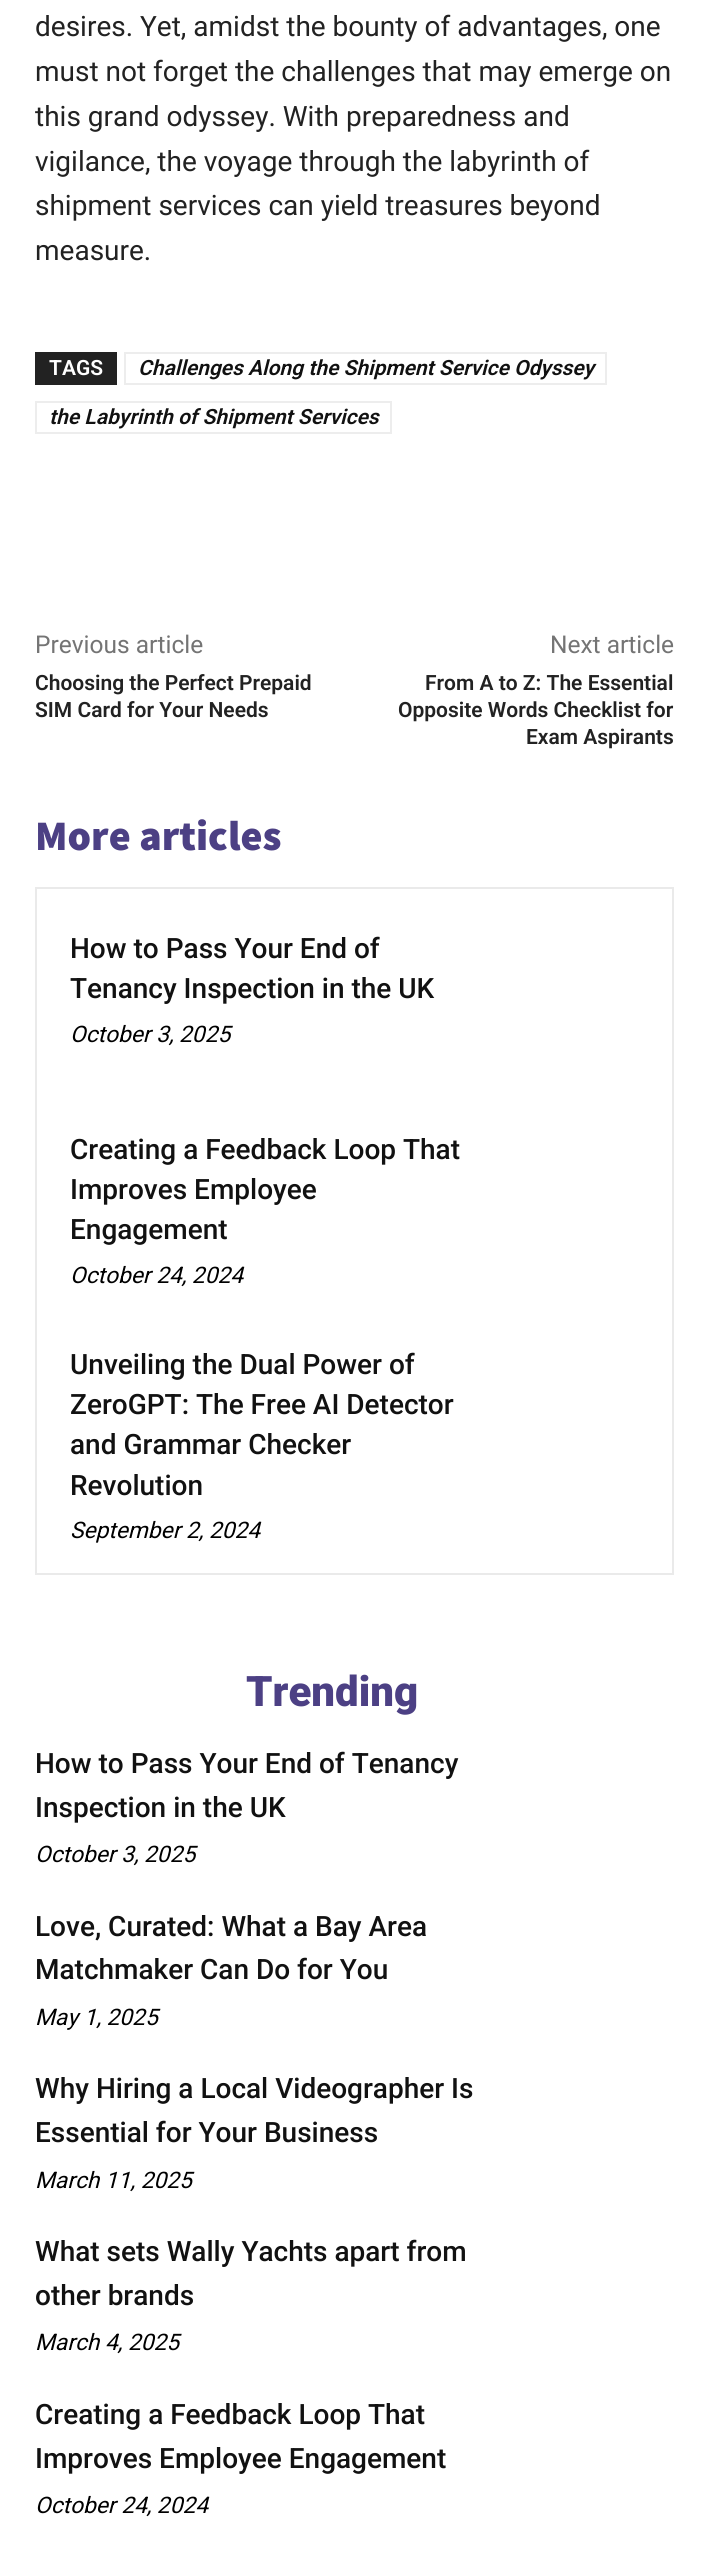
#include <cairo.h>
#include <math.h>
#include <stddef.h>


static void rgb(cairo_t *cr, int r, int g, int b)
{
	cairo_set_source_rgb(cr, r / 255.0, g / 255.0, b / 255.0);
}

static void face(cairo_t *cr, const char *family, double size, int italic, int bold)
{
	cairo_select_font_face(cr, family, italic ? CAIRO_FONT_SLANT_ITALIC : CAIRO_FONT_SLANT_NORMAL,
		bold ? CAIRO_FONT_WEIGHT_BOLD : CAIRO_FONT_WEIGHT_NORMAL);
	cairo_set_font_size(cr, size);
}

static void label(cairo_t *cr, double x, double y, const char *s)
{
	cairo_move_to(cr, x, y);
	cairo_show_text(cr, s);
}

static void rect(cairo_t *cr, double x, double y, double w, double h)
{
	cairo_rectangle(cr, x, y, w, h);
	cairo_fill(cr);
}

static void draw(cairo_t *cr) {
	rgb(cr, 255, 255, 255);
	cairo_paint(cr);
	face(cr, "Roboto", 28, 0, 0);
	rgb(cr, 34, 34, 34);
	label(cr, 35, 36, "desires. Yet, amidst the bounty of advantages, one");
	label(cr, 35, 81, "must not forget the challenges that may emerge on");
	label(cr, 35, 126, "this grand odyssey. With preparedness and");
	label(cr, 35, 171, "vigilance, the voyage through the labyrinth of");
	label(cr, 35, 215, "shipment services can yield treasures beyond");
	label(cr, 35, 260, "measure.");
	rect(cr, 35, 352, 82, 33);
	face(cr, "Roboto SemiBold", 21, 0, 0);
	rgb(cr, 255, 255, 255);
	label(cr, 49, 375, "TAGS");
	cairo_rectangle(cr, 125, 353, 481, 31);
	rgb(cr, 237, 237, 237);
	cairo_stroke(cr);
	face(cr, "Roboto SemiBold", 21, 1, 0);
	rgb(cr, 17, 17, 17);
	label(cr, 138, 375, "Challenges Along the Shipment Service Odyssey");
	cairo_rectangle(cr, 36, 402, 355, 31);
	rgb(cr, 237, 237, 237);
	cairo_stroke(cr);
	rgb(cr, 17, 17, 17);
	label(cr, 49, 424, "the Labyrinth of Shipment Services");
	face(cr, "Roboto", 24.5, 0, 0);
	rgb(cr, 116, 116, 116);
	label(cr, 35, 653, "Previous article");
	face(cr, "Roboto SemiBold", 21, 0, 0);
	rgb(cr, 34, 34, 34);
	label(cr, 35, 690, "Choosing the Perfect Prepaid");
	label(cr, 35, 717, "SIM Card for Your Needs");
	face(cr, "Roboto", 24.5, 0, 0);
	rgb(cr, 116, 116, 116);
	label(cr, 550, 653, "Next article");
	face(cr, "Roboto SemiBold", 21, 0, 0);
	rgb(cr, 34, 34, 34);
	label(cr, 425, 690, "From A to Z: The Essential");
	label(cr, 398, 717, "Opposite Words Checklist for");
	label(cr, 526, 744, "Exam Aspirants");
	face(cr, "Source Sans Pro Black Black", 42, 0, 0);
	rgb(cr, 76, 64, 132);
	label(cr, 35, 850, "More articles");
	cairo_rectangle(cr, 36, 888, 637, 686);
	rgb(cr, 234, 234, 234);
	cairo_stroke(cr);
	face(cr, "Roboto Medium", 28, 0, 0);
	rgb(cr, 17, 17, 17);
	label(cr, 70, 958, "How to Pass Your End of");
	label(cr, 70, 998, "Tenancy Inspection in the UK");
	face(cr, "Roboto", 22.75, 1, 0);
	rgb(cr, 0, 0, 0);
	label(cr, 70, 1042, "October 3, 2025");
	face(cr, "Roboto Medium", 28, 0, 0);
	rgb(cr, 17, 17, 17);
	label(cr, 70, 1159, "Creating a Feedback Loop That");
	label(cr, 70, 1199, "Improves Employee");
	label(cr, 70, 1239, "Engagement");
	face(cr, "Roboto", 22.75, 1, 0);
	rgb(cr, 0, 0, 0);
	label(cr, 70, 1283, "October 24, 2024");
	face(cr, "Roboto Medium", 28, 0, 0);
	rgb(cr, 17, 17, 17);
	label(cr, 70, 1374, "Unveiling the Dual Power of");
	label(cr, 70, 1414, "ZeroGPT: The Free AI Detector");
	label(cr, 70, 1454, "and Grammar Checker");
	label(cr, 70, 1495, "Revolution");
	face(cr, "Roboto", 22.75, 1, 0);
	rgb(cr, 0, 0, 0);
	label(cr, 70, 1538, "September 2, 2024");
	face(cr, "Roboto Black", 42, 0, 0);
	rgb(cr, 76, 64, 132);
	label(cr, 246, 1706, "Trending");
	face(cr, "Roboto Medium", 28, 0, 0);
	rgb(cr, 17, 17, 17);
	label(cr, 35, 1773, "How to Pass Your End of Tenancy");
	label(cr, 35, 1817, "Inspection in the UK");
	face(cr, "Roboto", 22.75, 1, 0);
	rgb(cr, 0, 0, 0);
	label(cr, 35, 1862, "October 3, 2025");
	face(cr, "Roboto Medium", 28, 0, 0);
	rgb(cr, 17, 17, 17);
	label(cr, 35, 1936, "Love, Curated: What a Bay Area");
	label(cr, 35, 1979, "Matchmaker Can Do for You");
	face(cr, "Roboto", 22.75, 1, 0);
	rgb(cr, 0, 0, 0);
	label(cr, 35, 2025, "May 1, 2025");
	face(cr, "Roboto Medium", 28, 0, 0);
	rgb(cr, 17, 17, 17);
	label(cr, 35, 2098, "Why Hiring a Local Videographer Is");
	label(cr, 35, 2142, "Essential for Your Business");
	face(cr, "Roboto", 22.75, 1, 0);
	rgb(cr, 0, 0, 0);
	label(cr, 35, 2188, "March 11, 2025");
	face(cr, "Roboto Medium", 28, 0, 0);
	rgb(cr, 17, 17, 17);
	label(cr, 35, 2261, "What sets Wally Yachts apart from");
	label(cr, 35, 2305, "other brands");
	face(cr, "Roboto", 22.75, 1, 0);
	rgb(cr, 0, 0, 0);
	label(cr, 35, 2350, "March 4, 2025");
	face(cr, "Roboto Medium", 28, 0, 0);
	rgb(cr, 17, 17, 17);
	label(cr, 35, 2424, "Creating a Feedback Loop That");
	label(cr, 35, 2468, "Improves Employee Engagement");
	face(cr, "Roboto", 22.75, 1, 0);
	rgb(cr, 0, 0, 0);
	label(cr, 35, 2513, "October 24, 2024");
}

int main(void) {
	cairo_surface_t *surface = cairo_image_surface_create(CAIRO_FORMAT_RGB24, 708, 2557);
	cairo_t *cr = cairo_create(surface);
	cairo_font_options_t *options = cairo_font_options_create();
	cairo_font_options_set_hint_metrics(options, CAIRO_HINT_METRICS_OFF);
	cairo_font_options_set_hint_style(options, CAIRO_HINT_STYLE_NONE);
	cairo_set_font_options(cr, options);
	cairo_set_miter_limit(cr, 4);
	draw(cr);
	cairo_surface_write_to_png(surface, "render.png");
	cairo_font_options_destroy(options);
	cairo_destroy(cr);
	cairo_surface_destroy(surface);
	return 0;
}
